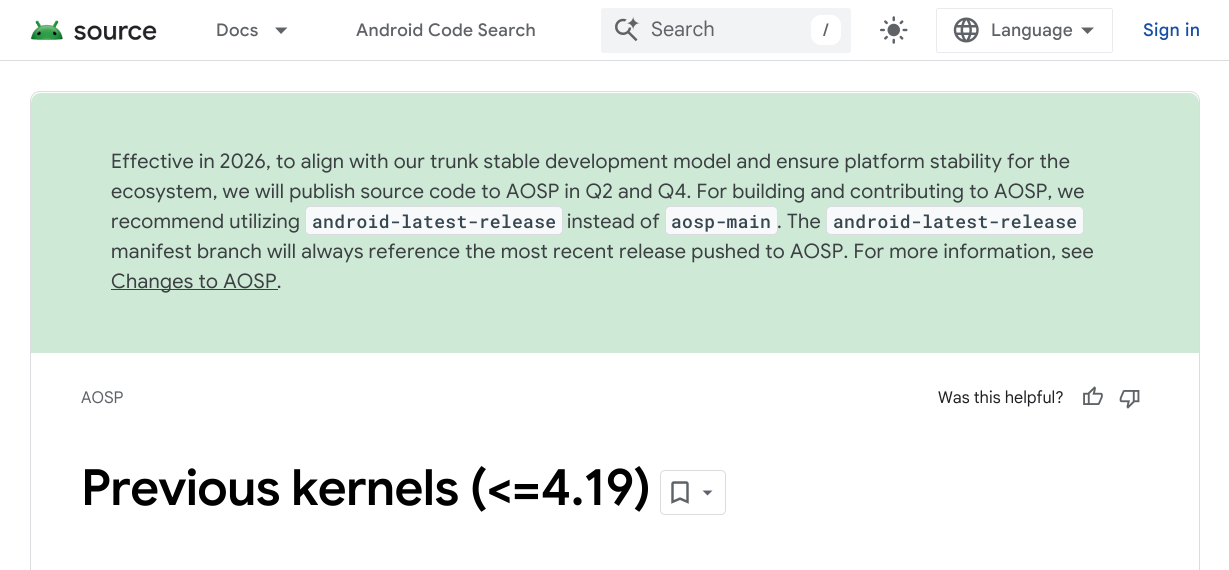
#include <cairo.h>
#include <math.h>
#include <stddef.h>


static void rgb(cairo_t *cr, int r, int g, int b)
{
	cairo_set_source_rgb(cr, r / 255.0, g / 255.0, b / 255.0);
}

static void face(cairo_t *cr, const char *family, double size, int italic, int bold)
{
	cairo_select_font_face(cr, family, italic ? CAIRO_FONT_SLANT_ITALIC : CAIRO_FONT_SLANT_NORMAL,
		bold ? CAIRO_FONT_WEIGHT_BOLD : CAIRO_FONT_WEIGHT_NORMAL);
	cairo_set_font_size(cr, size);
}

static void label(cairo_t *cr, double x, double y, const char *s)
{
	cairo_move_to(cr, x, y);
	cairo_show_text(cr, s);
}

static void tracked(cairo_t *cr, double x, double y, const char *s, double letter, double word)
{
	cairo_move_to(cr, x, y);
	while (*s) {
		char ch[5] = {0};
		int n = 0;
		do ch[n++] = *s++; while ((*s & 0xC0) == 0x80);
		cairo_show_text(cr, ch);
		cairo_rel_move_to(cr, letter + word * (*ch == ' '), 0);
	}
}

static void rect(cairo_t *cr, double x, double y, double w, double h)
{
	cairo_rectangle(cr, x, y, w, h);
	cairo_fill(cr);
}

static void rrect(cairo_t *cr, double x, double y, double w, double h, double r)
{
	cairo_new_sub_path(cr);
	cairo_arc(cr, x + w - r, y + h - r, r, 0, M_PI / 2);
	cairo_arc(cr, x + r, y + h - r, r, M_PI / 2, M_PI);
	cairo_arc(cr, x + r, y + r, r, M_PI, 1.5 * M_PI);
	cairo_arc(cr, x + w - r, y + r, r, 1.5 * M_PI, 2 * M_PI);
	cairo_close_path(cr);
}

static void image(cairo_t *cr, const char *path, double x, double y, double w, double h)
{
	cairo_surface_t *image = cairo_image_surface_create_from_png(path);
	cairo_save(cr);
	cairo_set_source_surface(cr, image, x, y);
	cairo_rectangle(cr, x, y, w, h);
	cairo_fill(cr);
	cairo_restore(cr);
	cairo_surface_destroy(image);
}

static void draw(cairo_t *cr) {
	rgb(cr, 255, 255, 255);
	cairo_paint(cr);
	rgb(cr, 218, 220, 224);
	rect(cr, 0, 60, 1229, 1);
	image(cr, "image0.png", 30, 20, 127, 20);
	face(cr, "Google Sans Medium", 17.5, 0, 0);
	rgb(cr, 95, 99, 104);
	tracked(cr, 216, 36, "Docs", 0.31, 0);
	cairo_new_path(cr);
	cairo_move_to(cr, 275, 27.5);
	cairo_line_to(cr, 287.5, 27.5);
	cairo_line_to(cr, 281, 34);
	cairo_close_path(cr);
	cairo_fill(cr);
	tracked(cr, 356, 36, "Android Code Search", 0.31, 0);
	rgb(cr, 241, 243, 244);
	rrect(cr, 601, 8, 250, 45, 2.5);
	cairo_fill(cr);
	image(cr, "image1.png", 615, 16, 25, 26);
	face(cr, "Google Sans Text", 20, 0, 0);
	rgb(cr, 95, 99, 104);
	label(cr, 651, 36, "Search");
	rgb(cr, 255, 255, 255);
	rrect(cr, 811, 15, 30, 30, 10);
	cairo_fill(cr);
	face(cr, "Google Sans Medium", 17.5, 0, 0);
	rgb(cr, 95, 99, 104);
	label(cr, 823, 36, "/");
	image(cr, "image2.png", 880, 16, 28, 28);
	rrect(cr, 936.5, 8.5, 176, 44, 2);
	rgb(cr, 232, 234, 237);
	cairo_set_line_width(cr, 1);
	cairo_stroke(cr);
	image(cr, "image3.png", 953, 17, 26, 26);
	face(cr, "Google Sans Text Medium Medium", 17.5, 0, 0);
	rgb(cr, 95, 99, 104);
	label(cr, 991, 36, "Language");
	cairo_new_path(cr);
	cairo_move_to(cr, 1087.5, 34);
	cairo_line_to(cr, 1081, 27.5);
	cairo_line_to(cr, 1094, 27.5);
	cairo_close_path(cr);
	cairo_fill(cr);
	rgb(cr, 23, 78, 166);
	tracked(cr, 1143, 36, "Sign in", 0.31, 0);
	rrect(cr, 30.5, 91.5, 1169, 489, 9.5);
	rgb(cr, 218, 220, 224);
	cairo_stroke(cr);
	rgb(cr, 206, 234, 214);
	cairo_new_path(cr);
	cairo_move_to(cr, 41, 93);
	cairo_line_to(cr, 1189, 93);
	cairo_curve_to(cr, 1194.5, 93, 1199, 97.5, 1199, 103);
	cairo_line_to(cr, 1199, 353);
	cairo_line_to(cr, 31, 353);
	cairo_line_to(cr, 31, 103);
	cairo_curve_to(cr, 31, 97.5, 35.5, 93, 41, 93);
	cairo_close_path(cr);
	cairo_fill(cr);
	face(cr, "Google Sans", 20, 0, 0);
	rgb(cr, 60, 64, 67);
	tracked(cr, 111, 168, "Effective in 2026, to align with our trunk stable development model and ensure platform stability for the", 0.31, 0);
	tracked(cr, 111, 198, "ecosystem, we will publish source code to AOSP in Q2 and Q4. For building and contributing to AOSP, we", 0.31, 0);
	tracked(cr, 111, 228, "recommend utilizing", 0.31, 0);
	rgb(cr, 248, 249, 250);
	rrect(cr, 305.5, 206.5, 257, 28, 4.5);
	cairo_fill_preserve(cr);
	rgb(cr, 218, 220, 224);
	cairo_stroke(cr);
	face(cr, "Roboto Mono Medium", 18, 0, 0);
	rgb(cr, 55, 71, 79);
	tracked(cr, 312, 228, "android-latest-release", 0.31, 0);
	face(cr, "Google Sans", 20, 0, 0);
	rgb(cr, 60, 64, 67);
	tracked(cr, 567, 228, "instead of", 0.31, 0);
	rgb(cr, 248, 249, 250);
	rrect(cr, 665.5, 206.5, 112, 28, 4.5);
	cairo_fill_preserve(cr);
	rgb(cr, 218, 220, 224);
	cairo_stroke(cr);
	face(cr, "Roboto Mono Medium", 18, 0, 0);
	rgb(cr, 55, 71, 79);
	tracked(cr, 671, 228, "aosp-main", 0.31, 0);
	face(cr, "Google Sans", 20, 0, 0);
	rgb(cr, 60, 64, 67);
	tracked(cr, 777, 228, ". The", 0.31, 0);
	rgb(cr, 248, 249, 250);
	rrect(cr, 826.5, 206.5, 257, 28, 4.5);
	cairo_fill_preserve(cr);
	rgb(cr, 218, 220, 224);
	cairo_stroke(cr);
	face(cr, "Roboto Mono Medium", 18, 0, 0);
	rgb(cr, 55, 71, 79);
	tracked(cr, 833, 228, "android-latest-release", 0.31, 0);
	face(cr, "Google Sans", 20, 0, 0);
	rgb(cr, 60, 64, 67);
	tracked(cr, 111, 258, "manifest branch will always reference the most recent release pushed to AOSP. For more information, see", 0.31, 0);
	rect(cr, 111, 289, 167, 1);
	tracked(cr, 111, 288, "Changes to AOSP.", 0.31, 0);
	face(cr, "Google Sans Text", 16.25, 0, 0);
	rgb(cr, 95, 99, 104);
	label(cr, 81, 403, "AOSP");
	rgb(cr, 32, 33, 36);
	label(cr, 938, 403, "Was this helpful?");
	image(cr, "image4.png", 1083, 386, 20, 19);
	image(cr, "image5.png", 1119, 390, 21, 19);
	face(cr, "Google Sans SemiBold", 50, 0, 0);
	rgb(cr, 0, 0, 0);
	tracked(cr, 81, 505, "Previous kernels (<=4.19)", -0.6, 0);
	rrect(cr, 660.5, 470.5, 65, 44, 4.5);
	rgb(cr, 218, 220, 224);
	cairo_stroke(cr);
	image(cr, "image6.png", 671, 481, 18, 23);
	rgb(cr, 95, 99, 104);
	cairo_new_path(cr);
	cairo_move_to(cr, 702.5, 490.5);
	cairo_line_to(cr, 712.5, 490.5);
	cairo_line_to(cr, 707.5, 495.5);
	cairo_close_path(cr);
	cairo_fill(cr);
}

int main(void) {
	cairo_surface_t *surface = cairo_image_surface_create(CAIRO_FORMAT_RGB24, 1229, 570);
	cairo_t *cr = cairo_create(surface);
	cairo_font_options_t *options = cairo_font_options_create();
	cairo_font_options_set_hint_metrics(options, CAIRO_HINT_METRICS_OFF);
	cairo_font_options_set_hint_style(options, CAIRO_HINT_STYLE_NONE);
	cairo_set_font_options(cr, options);
	cairo_set_miter_limit(cr, 4);
	draw(cr);
	cairo_surface_write_to_png(surface, "render.png");
	cairo_font_options_destroy(options);
	cairo_destroy(cr);
	cairo_surface_destroy(surface);
	return 0;
}
